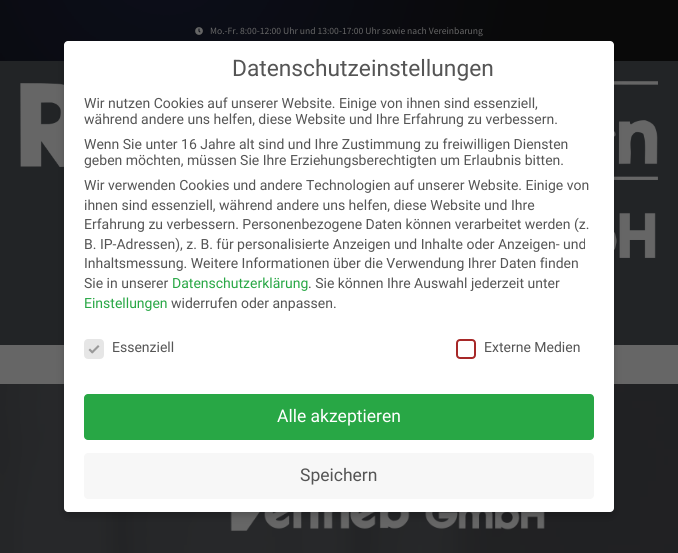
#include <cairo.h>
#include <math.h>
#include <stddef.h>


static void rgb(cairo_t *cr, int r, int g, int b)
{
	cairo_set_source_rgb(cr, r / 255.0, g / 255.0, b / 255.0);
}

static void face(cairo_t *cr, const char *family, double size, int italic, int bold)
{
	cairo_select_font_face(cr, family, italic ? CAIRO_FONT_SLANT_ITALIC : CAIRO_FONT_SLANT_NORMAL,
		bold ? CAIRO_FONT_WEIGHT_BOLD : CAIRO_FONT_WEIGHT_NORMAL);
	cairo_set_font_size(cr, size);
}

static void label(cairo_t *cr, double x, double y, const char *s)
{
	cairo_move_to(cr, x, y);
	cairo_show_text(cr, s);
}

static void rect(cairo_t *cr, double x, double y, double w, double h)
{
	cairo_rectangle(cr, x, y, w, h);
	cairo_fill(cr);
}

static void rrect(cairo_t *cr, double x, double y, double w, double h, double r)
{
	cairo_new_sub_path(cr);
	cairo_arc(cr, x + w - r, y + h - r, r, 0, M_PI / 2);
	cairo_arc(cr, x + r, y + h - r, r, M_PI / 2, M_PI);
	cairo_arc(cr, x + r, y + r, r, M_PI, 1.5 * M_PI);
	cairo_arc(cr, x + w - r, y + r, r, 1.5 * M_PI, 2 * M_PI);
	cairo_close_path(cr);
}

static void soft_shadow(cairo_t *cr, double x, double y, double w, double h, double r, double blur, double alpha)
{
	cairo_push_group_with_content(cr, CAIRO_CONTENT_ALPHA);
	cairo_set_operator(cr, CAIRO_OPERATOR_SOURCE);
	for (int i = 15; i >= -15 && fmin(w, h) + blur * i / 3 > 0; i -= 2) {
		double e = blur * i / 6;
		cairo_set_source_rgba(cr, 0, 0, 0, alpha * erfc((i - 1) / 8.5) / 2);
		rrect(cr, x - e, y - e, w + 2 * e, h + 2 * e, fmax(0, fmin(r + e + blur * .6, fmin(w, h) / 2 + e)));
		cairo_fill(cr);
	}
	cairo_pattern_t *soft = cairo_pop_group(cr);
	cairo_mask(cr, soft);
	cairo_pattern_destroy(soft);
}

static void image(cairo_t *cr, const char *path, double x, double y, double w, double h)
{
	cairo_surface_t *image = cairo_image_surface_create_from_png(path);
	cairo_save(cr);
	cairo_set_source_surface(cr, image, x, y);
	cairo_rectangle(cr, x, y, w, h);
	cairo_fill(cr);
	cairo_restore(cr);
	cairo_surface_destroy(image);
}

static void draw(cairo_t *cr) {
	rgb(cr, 102, 102, 102);
	cairo_paint(cr);
	image(cr, "image0.png", 0, 0, 678, 61);
	image(cr, "image1.png", 195, 27, 8, 8);
	face(cr, "Source Sans Pro", 9.6, 0, 0);
	rgb(cr, 102, 102, 102);
	label(cr, 210, 34, "Mo.-Fr. 8:00-12:00 Uhr und 13:00-17:00 Uhr sowie nach Vereinbarung");
	rgb(cr, 34, 36, 38);
	rect(cr, 0, 61, 678, 284);
	image(cr, "image2.png", 20, 81, 638, 177);
	rect(cr, 0, 384, 678, 169);
	image(cr, "image3.png", 0, 384, 678, 169);
	image(cr, "image4.png", 230, 512, 315, 19);
	rgb(cr, 0, 0, 0);
	soft_shadow(cr, 64, 45, 550, 471, 4, 4, 0.2);
	rgb(cr, 255, 255, 255);
	rrect(cr, 64, 41, 550, 471, 4);
	cairo_fill(cr);
	face(cr, "Roboto", 22.75, 0, 0);
	rgb(cr, 85, 85, 85);
	label(cr, 232, 76, "Datenschutzeinstellungen");
	face(cr, "Roboto", 14, 0, 0);
	label(cr, 84, 108, "Wir nutzen Cookies auf unserer Website. Einige von ihnen sind essenziell,");
	label(cr, 84, 124, "während andere uns helfen, diese Website und Ihre Erfahrung zu verbessern.");
	label(cr, 84, 149, "Wenn Sie unter 16 Jahre alt sind und Ihre Zustimmung zu freiwilligen Diensten");
	label(cr, 84, 165, "geben möchten, müssen Sie Ihre Erziehungsberechtigten um Erlaubnis bitten.");
	label(cr, 84, 190, "Wir verwenden Cookies und andere Technologien auf unserer Website. Einige von");
	label(cr, 84, 210, "ihnen sind essenziell, während andere uns helfen, diese Website und Ihre");
	label(cr, 84, 229, "Erfahrung zu verbessern. Personenbezogene Daten können verarbeitet werden (z.");
	label(cr, 84, 249, "B. IP-Adressen), z. B. für personalisierte Anzeigen und Inhalte oder Anzeigen- und");
	label(cr, 84, 268, "Inhaltsmessung. Weitere Informationen über die Verwendung Ihrer Daten finden");
	label(cr, 84, 288, "Sie in unserer");
	rgb(cr, 40, 167, 69);
	label(cr, 172, 288, "Datenschutzerklärung");
	rgb(cr, 85, 85, 85);
	label(cr, 308, 288, ". Sie können Ihre Auswahl jederzeit unter");
	rgb(cr, 40, 167, 69);
	label(cr, 84, 308, "Einstellungen");
	rgb(cr, 85, 85, 85);
	label(cr, 171, 308, "widerrufen oder anpassen.");
	rgb(cr, 230, 230, 230);
	rrect(cr, 85, 340, 18, 18, 3);
	cairo_fill_preserve(cr);
	cairo_stroke(cr);
	rgb(cr, 153, 153, 153);
	cairo_new_path(cr);
	cairo_move_to(cr, 98, 345);
	cairo_line_to(cr, 99.5, 346.5);
	cairo_line_to(cr, 92.5, 353.5);
	cairo_line_to(cr, 91, 352);
	cairo_close_path(cr);
	cairo_fill(cr);
	cairo_new_path(cr);
	cairo_move_to(cr, 90, 348.5);
	cairo_line_to(cr, 93.5, 352);
	cairo_line_to(cr, 92, 353.5);
	cairo_line_to(cr, 88.5, 350);
	cairo_close_path(cr);
	cairo_fill(cr);
	rgb(cr, 85, 85, 85);
	label(cr, 112, 352, "Essenziell");
	rrect(cr, 457, 340, 18, 18, 3);
	rgb(cr, 167, 40, 40);
	cairo_stroke(cr);
	rgb(cr, 85, 85, 85);
	label(cr, 484, 352, "Externe Medien");
	rgb(cr, 40, 167, 69);
	rrect(cr, 84, 394, 510, 46, 4);
	cairo_fill(cr);
	face(cr, "Roboto", 17.5, 0, 0);
	rgb(cr, 255, 255, 255);
	label(cr, 277, 422, "Alle akzeptieren");
	rgb(cr, 247, 247, 247);
	rrect(cr, 84, 453, 510, 46, 4);
	cairo_fill(cr);
	rgb(cr, 85, 85, 85);
	label(cr, 300, 481, "Speichern");
}

int main(void) {
	cairo_surface_t *surface = cairo_image_surface_create(CAIRO_FORMAT_RGB24, 678, 553);
	cairo_t *cr = cairo_create(surface);
	cairo_font_options_t *options = cairo_font_options_create();
	cairo_font_options_set_hint_metrics(options, CAIRO_HINT_METRICS_OFF);
	cairo_font_options_set_hint_style(options, CAIRO_HINT_STYLE_NONE);
	cairo_set_font_options(cr, options);
	cairo_set_miter_limit(cr, 4);
	draw(cr);
	cairo_surface_write_to_png(surface, "render.png");
	cairo_font_options_destroy(options);
	cairo_destroy(cr);
	cairo_surface_destroy(surface);
	return 0;
}
